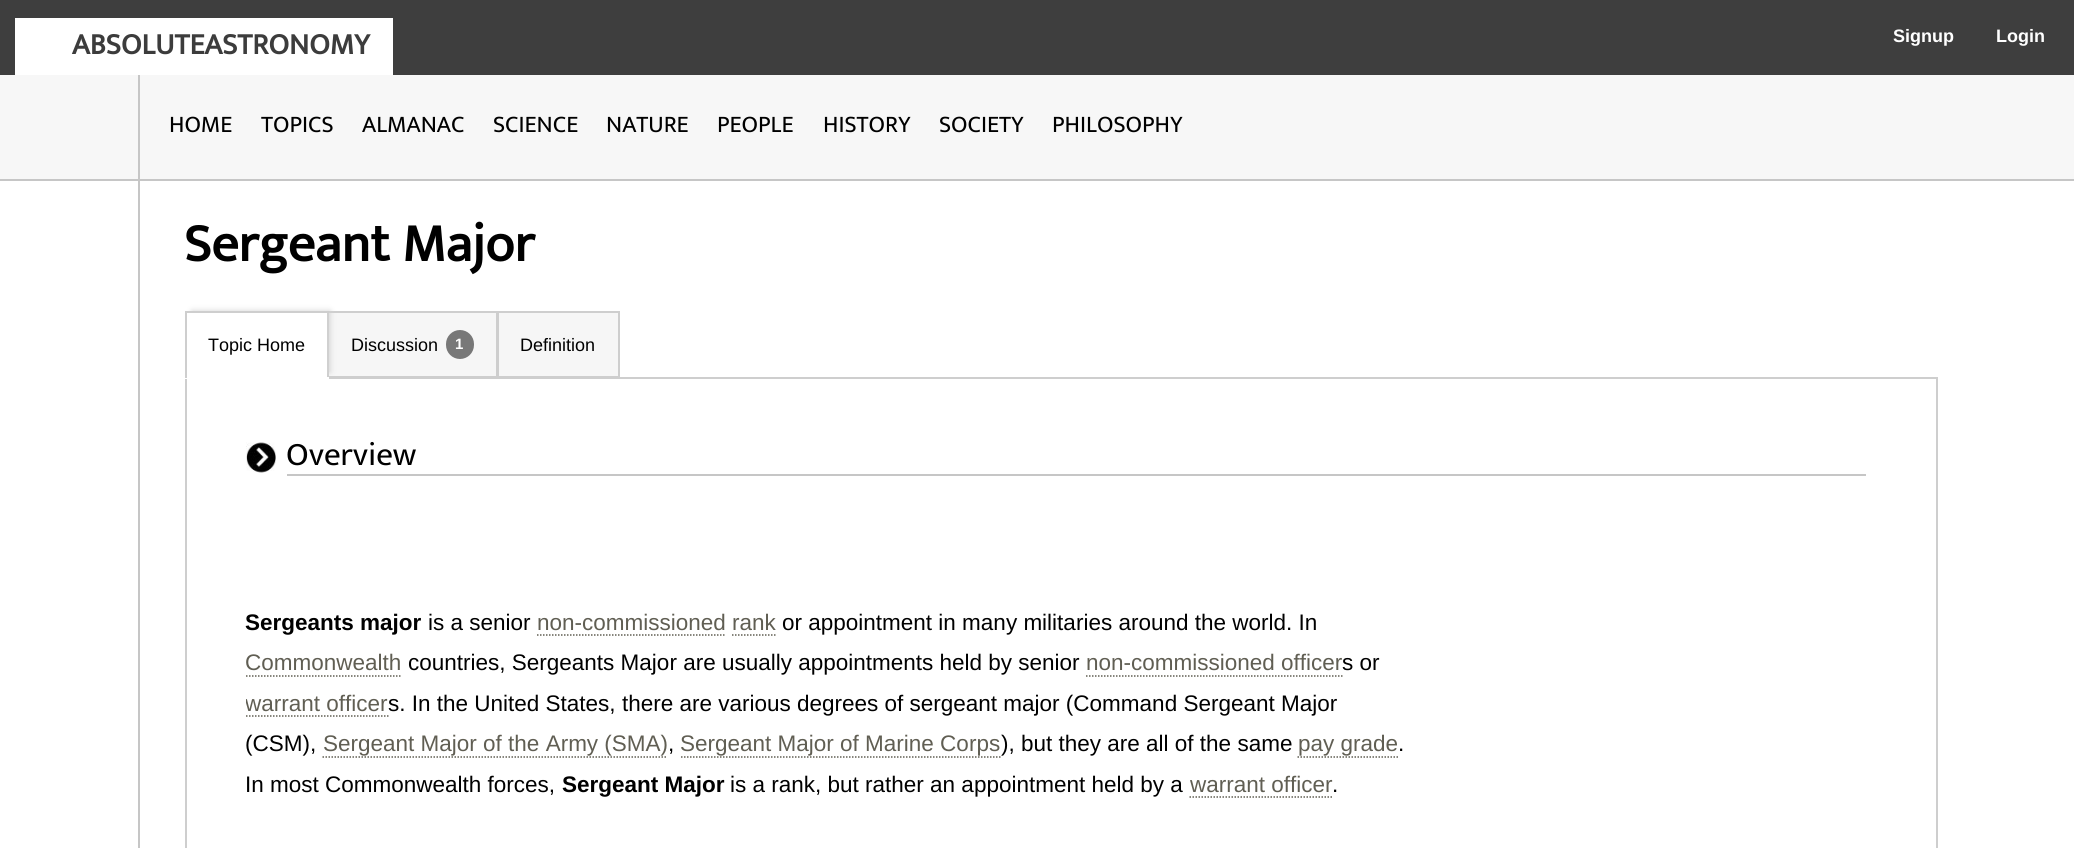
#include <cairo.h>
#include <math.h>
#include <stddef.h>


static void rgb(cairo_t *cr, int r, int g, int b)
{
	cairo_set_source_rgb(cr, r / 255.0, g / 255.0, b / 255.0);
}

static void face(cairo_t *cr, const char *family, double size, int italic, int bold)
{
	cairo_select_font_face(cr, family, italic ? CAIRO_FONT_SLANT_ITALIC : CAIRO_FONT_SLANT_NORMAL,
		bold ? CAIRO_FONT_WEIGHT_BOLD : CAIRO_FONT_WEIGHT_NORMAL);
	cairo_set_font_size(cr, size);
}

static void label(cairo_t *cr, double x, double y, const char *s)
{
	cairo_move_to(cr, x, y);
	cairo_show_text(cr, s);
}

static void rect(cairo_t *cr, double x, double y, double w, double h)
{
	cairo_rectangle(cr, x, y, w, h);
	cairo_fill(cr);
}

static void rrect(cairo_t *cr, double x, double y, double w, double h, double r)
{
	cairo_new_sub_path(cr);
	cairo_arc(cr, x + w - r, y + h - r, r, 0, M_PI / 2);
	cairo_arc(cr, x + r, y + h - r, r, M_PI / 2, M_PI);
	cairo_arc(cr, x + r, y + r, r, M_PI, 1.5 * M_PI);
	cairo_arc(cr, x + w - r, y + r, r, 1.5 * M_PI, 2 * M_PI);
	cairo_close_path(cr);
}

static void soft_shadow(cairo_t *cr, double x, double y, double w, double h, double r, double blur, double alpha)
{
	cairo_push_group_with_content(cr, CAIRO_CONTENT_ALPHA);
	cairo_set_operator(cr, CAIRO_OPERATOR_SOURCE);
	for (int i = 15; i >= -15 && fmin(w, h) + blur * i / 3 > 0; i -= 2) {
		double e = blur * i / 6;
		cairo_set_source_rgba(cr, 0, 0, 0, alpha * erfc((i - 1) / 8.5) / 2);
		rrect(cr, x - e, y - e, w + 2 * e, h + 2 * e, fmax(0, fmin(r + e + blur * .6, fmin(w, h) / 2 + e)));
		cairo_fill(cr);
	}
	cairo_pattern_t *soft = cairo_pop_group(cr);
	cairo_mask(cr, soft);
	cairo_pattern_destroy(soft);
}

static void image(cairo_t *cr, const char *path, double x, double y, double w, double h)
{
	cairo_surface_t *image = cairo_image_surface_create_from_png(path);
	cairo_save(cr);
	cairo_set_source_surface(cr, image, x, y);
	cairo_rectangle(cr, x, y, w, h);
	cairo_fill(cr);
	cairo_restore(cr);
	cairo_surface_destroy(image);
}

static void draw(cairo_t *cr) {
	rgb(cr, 255, 255, 255);
	cairo_paint(cr);
	rgb(cr, 62, 62, 62);
	rect(cr, 0, 0, 2074, 75);
	rgb(cr, 255, 255, 255);
	rect(cr, 15, 18, 378, 57);
	face(cr, "Mukta", 30, 0, 1);
	rgb(cr, 60, 60, 60);
	label(cr, 72, 54, "ABSOLUTEASTRONOMY");
	face(cr, "Liberation Sans", 18, 0, 1);
	rgb(cr, 255, 255, 255);
	label(cr, 1893, 42, "Signup");
	label(cr, 1996, 42, "Login");
	rgb(cr, 247, 247, 247);
	rect(cr, 0, 75, 2074, 104);
	rgb(cr, 198, 198, 198);
	rect(cr, 0, 179, 2074, 2);
	face(cr, "Mukta", 24, 0, 0);
	rgb(cr, 0, 0, 0);
	label(cr, 169, 132, "HOME");
	label(cr, 261, 132, "TOPICS");
	label(cr, 362, 132, "ALMANAC");
	label(cr, 493, 132, "SCIENCE");
	label(cr, 606, 132, "NATURE");
	label(cr, 717, 132, "PEOPLE");
	label(cr, 823, 132, "HISTORY");
	label(cr, 939, 132, "SOCIETY");
	label(cr, 1052, 132, "PHILOSOPHY");
	rgb(cr, 198, 198, 198);
	rect(cr, 138, 75, 2, 773);
	face(cr, "Mukta", 54, 0, 1);
	rgb(cr, 0, 0, 0);
	label(cr, 184, 261, "Sergeant Major");
	cairo_rectangle(cr, 186, 378, 1751, 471);
	rgb(cr, 206, 206, 206);
	cairo_stroke(cr);
	rgb(cr, 246, 246, 246);
	cairo_rectangle(cr, 328, 312, 169, 65);
	cairo_fill_preserve(cr);
	rgb(cr, 206, 206, 206);
	cairo_stroke(cr);
	rgb(cr, 209, 209, 209);
	soft_shadow(cr, 192, 311, 138, 61, 0, 3, 1);
	rgb(cr, 255, 255, 255);
	rect(cr, 187, 313, 140, 64);
	rgb(cr, 206, 206, 206);
	rect(cr, 185, 311, 144, 2);
	rgb(cr, 255, 255, 255);
	rect(cr, 185, 377, 144, 2);
	rgb(cr, 206, 206, 206);
	rect(cr, 185, 311, 2, 67);
	face(cr, "Liberation Sans", 18, 0, 0);
	rgb(cr, 0, 0, 0);
	label(cr, 208, 351, "Topic Home");
	label(cr, 351, 351, "Discussion");
	rgb(cr, 120, 120, 120);
	rrect(cr, 446, 330, 28, 29, 14);
	cairo_fill(cr);
	face(cr, "Liberation Sans", 15, 0, 1);
	rgb(cr, 255, 255, 255);
	label(cr, 455, 349, "1");
	rgb(cr, 246, 246, 246);
	cairo_rectangle(cr, 498, 312, 121, 65);
	cairo_fill_preserve(cr);
	rgb(cr, 206, 206, 206);
	cairo_stroke(cr);
	face(cr, "Liberation Sans", 18, 0, 0);
	rgb(cr, 0, 0, 0);
	label(cr, 520, 351, "Definition");
	image(cr, "image0.png", 246, 442, 30, 31);
	rgb(cr, 198, 198, 198);
	rect(cr, 287, 474, 1579, 2);
	face(cr, "Mukta", 33, 0, 0);
	rgb(cr, 0, 0, 0);
	label(cr, 286, 465, "Overview");
	face(cr, "Liberation Sans", 22.5, 0, 1);
	label(cr, 245, 630, "Sergeants major");
	face(cr, "Liberation Sans", 22.5, 0, 0);
	label(cr, 428, 630, "is a senior");
	rgb(cr, 96, 94, 83);
	label(cr, 537, 630, "non-commissioned rank");
	cairo_new_path(cr);
	cairo_move_to(cr, 537, 635);
	cairo_line_to(cr, 726, 635);
	cairo_set_line_width(cr, 1.5);
	cairo_set_dash(cr, (double[]){1.5, 1.5}, 2, 0);
	cairo_stroke(cr);
	rgb(cr, 0, 0, 0);
	label(cr, 782, 630, "or appointment in many militaries around the world. In");
	cairo_new_path(cr);
	cairo_move_to(cr, 732, 635);
	cairo_line_to(cr, 775.5, 635);
	rgb(cr, 96, 94, 83);
	cairo_stroke(cr);
	label(cr, 245, 670, "Commonwealth");
	cairo_new_path(cr);
	cairo_move_to(cr, 246, 676);
	cairo_line_to(cr, 402, 676);
	cairo_stroke(cr);
	rgb(cr, 0, 0, 0);
	label(cr, 408, 670, "countries, Sergeants Major are usually appointments held by senior");
	rgb(cr, 96, 94, 83);
	label(cr, 1086, 670, "non-commissioned officer");
	cairo_new_path(cr);
	cairo_move_to(cr, 1086, 676);
	cairo_line_to(cr, 1342.5, 676);
	cairo_stroke(cr);
	rgb(cr, 0, 0, 0);
	label(cr, 1342, 670, "s or");
	cairo_save(cr);
	cairo_rectangle(cr, 246, 521, 1646, 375);
	cairo_clip(cr);
	rgb(cr, 96, 94, 83);
	label(cr, 245, 711, "warrant officer");
	cairo_restore(cr);
	cairo_new_path(cr);
	cairo_move_to(cr, 246, 716);
	cairo_line_to(cr, 388.5, 716);
	rgb(cr, 96, 94, 83);
	cairo_stroke(cr);
	rgb(cr, 0, 0, 0);
	label(cr, 388, 711, "s. In the United States, there are various degrees of sergeant major (Command Sergeant Major");
	label(cr, 245, 751, "(CSM),");
	rgb(cr, 96, 94, 83);
	label(cr, 323, 751, "Sergeant Major of the Army (SMA)");
	cairo_new_path(cr);
	cairo_move_to(cr, 322.5, 757);
	cairo_line_to(cr, 667.5, 757);
	cairo_stroke(cr);
	rgb(cr, 0, 0, 0);
	label(cr, 668, 751, ",");
	rgb(cr, 96, 94, 83);
	label(cr, 680, 751, "Sergeant Major of Marine Corps");
	cairo_new_path(cr);
	cairo_move_to(cr, 681, 757);
	cairo_line_to(cr, 1000.5, 757);
	cairo_stroke(cr);
	rgb(cr, 0, 0, 0);
	label(cr, 1001, 751, "), but they are all of the same");
	rgb(cr, 96, 94, 83);
	label(cr, 1298, 751, "pay grade");
	cairo_new_path(cr);
	cairo_move_to(cr, 1297.5, 757);
	cairo_line_to(cr, 1398, 757);
	cairo_stroke(cr);
	rgb(cr, 0, 0, 0);
	label(cr, 1398, 751, ".");
	label(cr, 245, 792, "In most Commonwealth forces,");
	face(cr, "Liberation Sans", 22.5, 0, 1);
	label(cr, 562, 792, "Sergeant Major");
	face(cr, "Liberation Sans", 22.5, 0, 0);
	label(cr, 730, 792, "is a rank, but rather an appointment held by a");
	rgb(cr, 96, 94, 83);
	label(cr, 1190, 792, "warrant officer");
	cairo_new_path(cr);
	cairo_move_to(cr, 1189.5, 797);
	cairo_line_to(cr, 1332, 797);
	cairo_stroke(cr);
	rgb(cr, 0, 0, 0);
	label(cr, 1332, 792, ".");
}

int main(void) {
	cairo_surface_t *surface = cairo_image_surface_create(CAIRO_FORMAT_RGB24, 2074, 848);
	cairo_t *cr = cairo_create(surface);
	cairo_font_options_t *options = cairo_font_options_create();
	cairo_font_options_set_hint_metrics(options, CAIRO_HINT_METRICS_OFF);
	cairo_font_options_set_hint_style(options, CAIRO_HINT_STYLE_NONE);
	cairo_set_font_options(cr, options);
	cairo_set_miter_limit(cr, 4);
	draw(cr);
	cairo_surface_write_to_png(surface, "render.png");
	cairo_font_options_destroy(options);
	cairo_destroy(cr);
	cairo_surface_destroy(surface);
	return 0;
}
